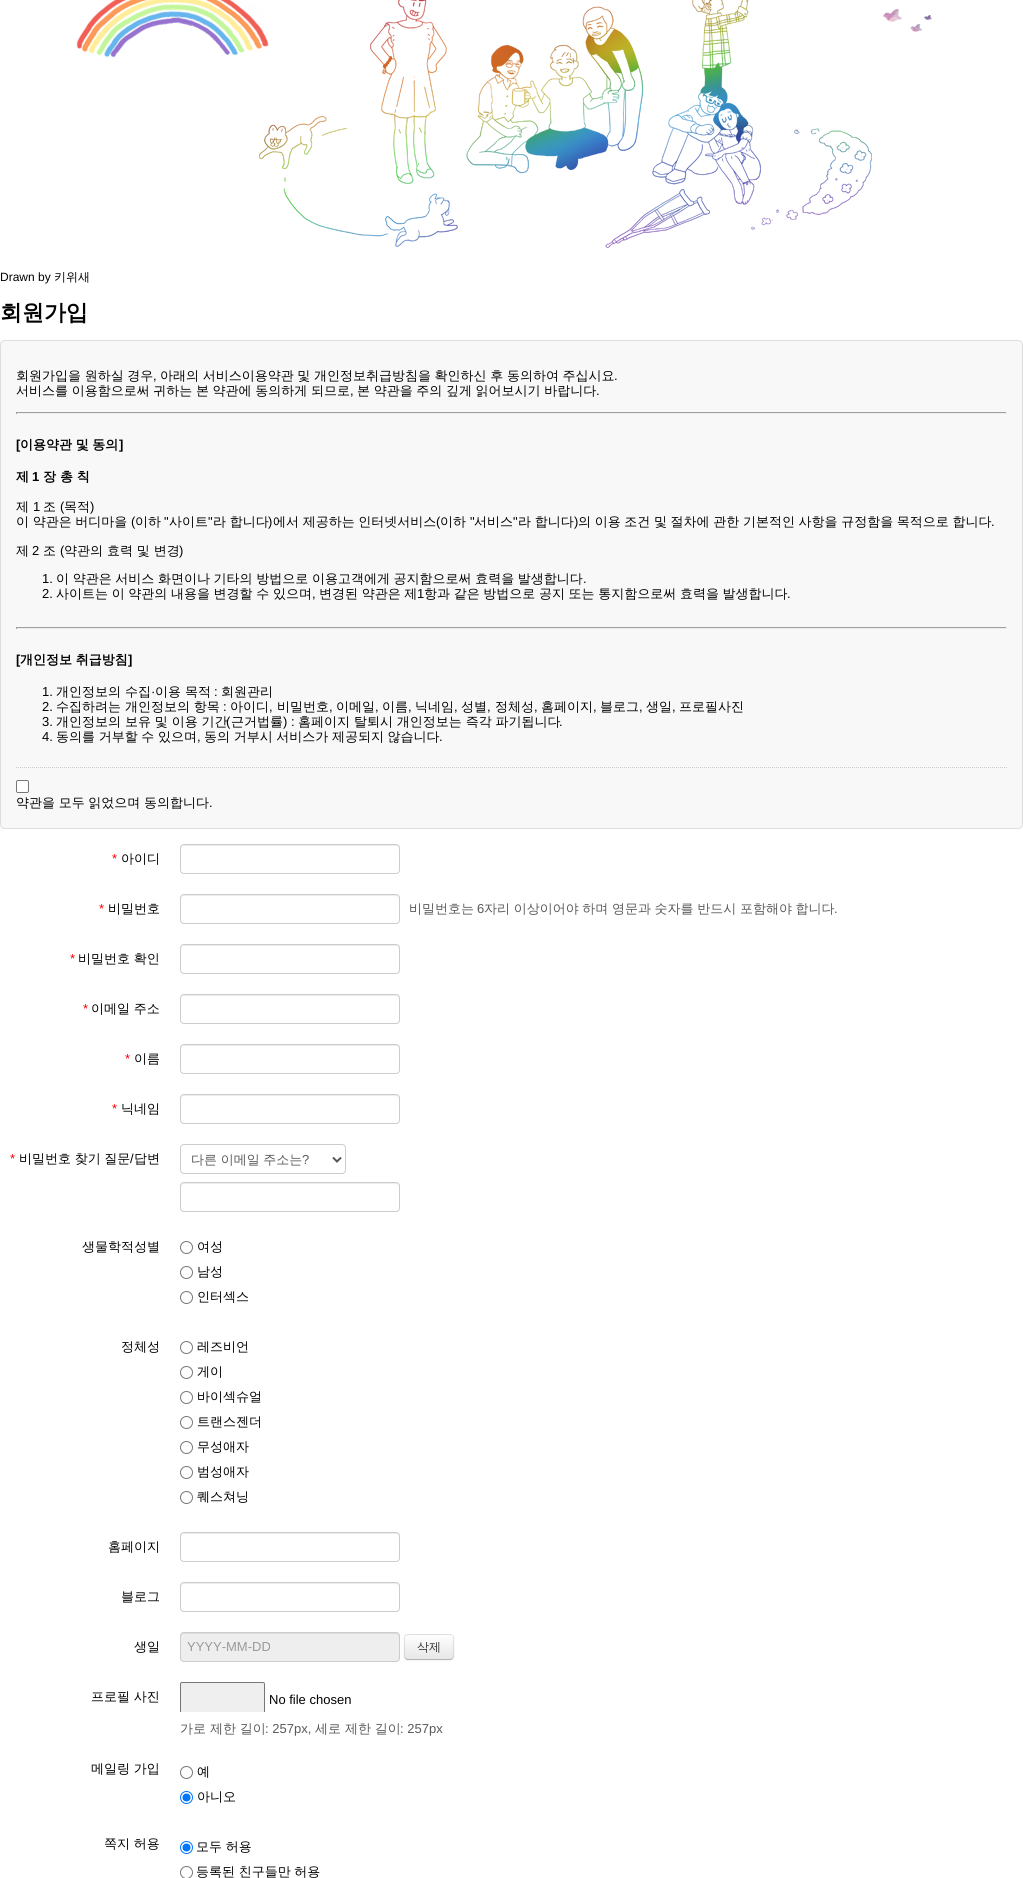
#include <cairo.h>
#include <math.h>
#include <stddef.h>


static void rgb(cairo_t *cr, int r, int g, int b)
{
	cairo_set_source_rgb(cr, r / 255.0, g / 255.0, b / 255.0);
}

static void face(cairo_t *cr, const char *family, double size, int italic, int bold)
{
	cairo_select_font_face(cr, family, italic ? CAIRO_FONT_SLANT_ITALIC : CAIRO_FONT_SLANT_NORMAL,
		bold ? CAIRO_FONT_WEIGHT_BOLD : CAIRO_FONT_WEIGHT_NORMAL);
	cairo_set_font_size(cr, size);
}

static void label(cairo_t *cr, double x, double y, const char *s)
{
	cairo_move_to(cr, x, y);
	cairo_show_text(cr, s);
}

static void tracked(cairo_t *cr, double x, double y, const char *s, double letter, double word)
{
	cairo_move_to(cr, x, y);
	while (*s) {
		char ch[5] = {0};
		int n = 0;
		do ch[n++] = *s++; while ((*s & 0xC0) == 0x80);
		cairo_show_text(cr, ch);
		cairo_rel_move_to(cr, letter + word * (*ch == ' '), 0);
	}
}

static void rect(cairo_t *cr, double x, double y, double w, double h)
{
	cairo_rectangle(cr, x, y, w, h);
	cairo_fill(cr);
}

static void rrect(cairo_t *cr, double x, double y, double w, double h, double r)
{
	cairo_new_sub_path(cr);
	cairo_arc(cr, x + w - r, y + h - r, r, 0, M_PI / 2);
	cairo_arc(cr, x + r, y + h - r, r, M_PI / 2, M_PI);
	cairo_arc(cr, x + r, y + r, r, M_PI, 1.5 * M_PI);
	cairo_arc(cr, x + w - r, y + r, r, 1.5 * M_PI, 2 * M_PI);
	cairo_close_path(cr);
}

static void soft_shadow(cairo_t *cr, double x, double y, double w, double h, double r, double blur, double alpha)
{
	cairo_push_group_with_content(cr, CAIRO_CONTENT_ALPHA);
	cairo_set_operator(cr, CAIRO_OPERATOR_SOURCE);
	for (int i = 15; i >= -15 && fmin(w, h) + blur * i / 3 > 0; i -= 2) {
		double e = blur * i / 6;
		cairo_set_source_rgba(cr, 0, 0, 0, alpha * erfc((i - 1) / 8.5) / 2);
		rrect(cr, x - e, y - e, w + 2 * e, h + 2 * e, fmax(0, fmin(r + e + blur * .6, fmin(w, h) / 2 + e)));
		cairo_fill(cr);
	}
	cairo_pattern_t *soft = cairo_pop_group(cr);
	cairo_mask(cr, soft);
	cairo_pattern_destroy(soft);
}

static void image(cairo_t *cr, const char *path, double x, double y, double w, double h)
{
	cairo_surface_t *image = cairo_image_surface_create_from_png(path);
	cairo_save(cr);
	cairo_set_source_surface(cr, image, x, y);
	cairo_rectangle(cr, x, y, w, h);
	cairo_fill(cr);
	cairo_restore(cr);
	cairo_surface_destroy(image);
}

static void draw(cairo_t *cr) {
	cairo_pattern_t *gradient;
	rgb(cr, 255, 255, 255);
	cairo_paint(cr);
	image(cr, "image0.png", 76, 0, 856, 248);
	face(cr, "Liberation Sans", 12, 0, 0);
	rgb(cr, 0, 0, 0);
	label(cr, 0, 281, "Drawn by");
	face(cr, "WenQuanYi Zen Hei Medium", 12, 0, 0);
	label(cr, 54, 281, "키위새");
	face(cr, "WenQuanYi Zen Hei", 22, 0, 1);
	label(cr, 0, 320, "회원가입");
	rgb(cr, 248, 248, 248);
	rrect(cr, 0.5, 340.5, 1022, 488, 4.5);
	cairo_fill_preserve(cr);
	rgb(cr, 221, 221, 221);
	cairo_set_line_width(cr, 1);
	cairo_stroke(cr);
	face(cr, "WenQuanYi Zen Hei Medium", 13, 0, 0);
	rgb(cr, 0, 0, 0);
	tracked(cr, 16, 380, "회원가입을 원하실 경우", 0, -0.25);
	face(cr, "Liberation Sans", 13, 0, 0);
	label(cr, 153, 380, ",");
	face(cr, "WenQuanYi Zen Hei Medium", 13, 0, 0);
	tracked(cr, 160, 380, "아래의 서비스이용약관 및 개인정보취급방침을 확인하신 후 동의하여 주십시요", 0, -0.25);
	face(cr, "Liberation Sans", 13, 0, 0);
	label(cr, 614, 380, ".");
	face(cr, "WenQuanYi Zen Hei Medium", 13, 0, 0);
	tracked(cr, 16, 395, "서비스를 이용함으로써 귀하는 본 약관에 동의하게 되므로", 0, -0.25);
	face(cr, "Liberation Sans", 13, 0, 0);
	label(cr, 350, 395, ",");
	face(cr, "WenQuanYi Zen Hei Medium", 13, 0, 0);
	tracked(cr, 357, 395, "본 약관을 주의 깊게 읽어보시기 바랍니다", 0, -0.25);
	face(cr, "Liberation Sans", 13, 0, 0);
	label(cr, 596, 395, ".");
	rgb(cr, 159, 159, 159);
	rect(cr, 16, 412, 991, 1);
	rgb(cr, 238, 238, 238);
	rect(cr, 1006, 412, 1, 2);
	rect(cr, 16, 413, 991, 1);
	rgb(cr, 159, 159, 159);
	rect(cr, 16, 412, 1, 2);
	face(cr, "Liberation Sans", 13, 0, 1);
	rgb(cr, 0, 0, 0);
	label(cr, 16, 449, "[");
	face(cr, "WenQuanYi Zen Hei", 13, 0, 1);
	tracked(cr, 20, 449, "이용약관 및 동의", 0, -0.25);
	face(cr, "Liberation Sans", 13, 0, 1);
	label(cr, 119, 449, "]");
	face(cr, "WenQuanYi Zen Hei", 13, 0, 1);
	label(cr, 16, 481, "제");
	face(cr, "Liberation Sans", 13, 0, 1);
	label(cr, 32, 481, "1");
	face(cr, "WenQuanYi Zen Hei", 13, 0, 1);
	label(cr, 43, 481, "장 총 칙");
	face(cr, "WenQuanYi Zen Hei Medium", 13, 0, 0);
	label(cr, 16, 511, "제");
	face(cr, "Liberation Sans", 13, 0, 0);
	label(cr, 33, 511, "1");
	face(cr, "WenQuanYi Zen Hei Medium", 13, 0, 0);
	label(cr, 43, 511, "조");
	face(cr, "Liberation Sans", 13, 0, 0);
	label(cr, 60, 511, "(");
	face(cr, "WenQuanYi Zen Hei Medium", 13, 0, 0);
	label(cr, 64, 511, "목적");
	face(cr, "Liberation Sans", 13, 0, 0);
	label(cr, 90, 511, ")");
	face(cr, "WenQuanYi Zen Hei Medium", 13, 0, 0);
	tracked(cr, 16, 526, "이 약관은 버디마을", 0, -0.25);
	face(cr, "Liberation Sans", 13, 0, 0);
	label(cr, 131, 526, "(");
	face(cr, "WenQuanYi Zen Hei Medium", 13, 0, 0);
	label(cr, 135, 526, "이하");
	face(cr, "Liberation Sans", 13, 0, 0);
	label(cr, 164, 526, "\"");
	face(cr, "WenQuanYi Zen Hei Medium", 13, 0, 0);
	label(cr, 169, 526, "사이트");
	face(cr, "Liberation Sans", 13, 0, 0);
	label(cr, 208, 526, "\"");
	face(cr, "WenQuanYi Zen Hei Medium", 13, 0, 0);
	tracked(cr, 213, 526, "라 합니다", 0, -0.25);
	face(cr, "Liberation Sans", 13, 0, 0);
	label(cr, 268, 526, ")");
	face(cr, "WenQuanYi Zen Hei Medium", 13, 0, 0);
	tracked(cr, 273, 526, "에서 제공하는 인터넷서비스", 0, -0.25);
	face(cr, "Liberation Sans", 13, 0, 0);
	label(cr, 436, 526, "(");
	face(cr, "WenQuanYi Zen Hei Medium", 13, 0, 0);
	label(cr, 440, 526, "이하");
	face(cr, "Liberation Sans", 13, 0, 0);
	label(cr, 470, 526, "\"");
	face(cr, "WenQuanYi Zen Hei Medium", 13, 0, 0);
	label(cr, 474, 526, "서비스");
	face(cr, "Liberation Sans", 13, 0, 0);
	label(cr, 513, 526, "\"");
	face(cr, "WenQuanYi Zen Hei Medium", 13, 0, 0);
	tracked(cr, 518, 526, "라 합니다", 0, -0.25);
	face(cr, "Liberation Sans", 13, 0, 0);
	label(cr, 574, 526, ")");
	face(cr, "WenQuanYi Zen Hei Medium", 13, 0, 0);
	tracked(cr, 578, 526, "의 이용 조건 및 절차에 관한 기본적인 사항을 규정함을 목적으로 합니다", 0, -0.25);
	face(cr, "Liberation Sans", 13, 0, 0);
	label(cr, 991, 526, ".");
	face(cr, "WenQuanYi Zen Hei Medium", 13, 0, 0);
	label(cr, 16, 555, "제");
	face(cr, "Liberation Sans", 13, 0, 0);
	label(cr, 32, 555, "2");
	face(cr, "WenQuanYi Zen Hei Medium", 13, 0, 0);
	label(cr, 43, 555, "조");
	face(cr, "Liberation Sans", 13, 0, 0);
	label(cr, 60, 555, "(");
	face(cr, "WenQuanYi Zen Hei Medium", 13, 0, 0);
	label(cr, 64, 555, "약관의 효력 및 변경");
	face(cr, "Liberation Sans", 13, 0, 0);
	label(cr, 179, 555, ")");
	label(cr, 42, 583, "1.");
	face(cr, "WenQuanYi Zen Hei Medium", 13, 0, 0);
	tracked(cr, 56, 583, "이 약관은 서비스 화면이나 기타의 방법으로 이용고객에게 공지함으로써 효력을 발생합니다", 0, -0.25);
	face(cr, "Liberation Sans", 13, 0, 0);
	label(cr, 583, 583, ".");
	label(cr, 42, 598, "2.");
	face(cr, "WenQuanYi Zen Hei Medium", 13, 0, 0);
	tracked(cr, 56, 598, "사이트는 이 약관의 내용을 변경할 수 있으며", 0, -0.25);
	face(cr, "Liberation Sans", 13, 0, 0);
	label(cr, 312, 598, ",");
	face(cr, "WenQuanYi Zen Hei Medium", 13, 0, 0);
	tracked(cr, 319, 598, "변경된 약관은 제", 0, -0.25);
	face(cr, "Liberation Sans", 13, 0, 0);
	label(cr, 417, 598, "1");
	face(cr, "WenQuanYi Zen Hei Medium", 13, 0, 0);
	tracked(cr, 424, 598, "항과 같은 방법으로 공지 또는 통지함으로써 효력을 발생합니다", 0, -0.25);
	face(cr, "Liberation Sans", 13, 0, 0);
	label(cr, 787, 598, ".");
	rgb(cr, 159, 159, 159);
	rect(cr, 16, 627, 991, 1);
	rgb(cr, 238, 238, 238);
	rect(cr, 1006, 627, 1, 2);
	rect(cr, 16, 628, 991, 1);
	rgb(cr, 159, 159, 159);
	rect(cr, 16, 627, 1, 2);
	face(cr, "Liberation Sans", 13, 0, 1);
	rgb(cr, 0, 0, 0);
	label(cr, 16, 664, "[");
	face(cr, "WenQuanYi Zen Hei", 13, 0, 1);
	tracked(cr, 20, 664, "개인정보 취급방침", 0, -0.25);
	face(cr, "Liberation Sans", 13, 0, 1);
	label(cr, 128, 664, "]");
	face(cr, "Liberation Sans", 13, 0, 0);
	label(cr, 42, 696, "1.");
	face(cr, "WenQuanYi Zen Hei Medium", 13, 0, 0);
	label(cr, 56, 696, "개인정보의 수집");
	face(cr, "Liberation Sans", 13, 0, 0);
	label(cr, 151, 696, "·");
	face(cr, "WenQuanYi Zen Hei Medium", 13, 0, 0);
	label(cr, 155, 696, "이용 목적");
	face(cr, "Liberation Sans", 13, 0, 0);
	label(cr, 214, 696, ":");
	face(cr, "WenQuanYi Zen Hei Medium", 13, 0, 0);
	label(cr, 221, 696, "회원관리");
	face(cr, "Liberation Sans", 13, 0, 0);
	label(cr, 42, 711, "2.");
	face(cr, "WenQuanYi Zen Hei Medium", 13, 0, 0);
	label(cr, 56, 711, "수집하려는 개인정보의 항목");
	face(cr, "Liberation Sans", 13, 0, 0);
	label(cr, 223, 711, ":");
	face(cr, "WenQuanYi Zen Hei Medium", 13, 0, 0);
	label(cr, 230, 711, "아이디");
	face(cr, "Liberation Sans", 13, 0, 0);
	label(cr, 269, 711, ",");
	face(cr, "WenQuanYi Zen Hei Medium", 13, 0, 0);
	label(cr, 277, 711, "비밀번호");
	face(cr, "Liberation Sans", 13, 0, 0);
	label(cr, 329, 711, ",");
	face(cr, "WenQuanYi Zen Hei Medium", 13, 0, 0);
	label(cr, 336, 711, "이메일");
	face(cr, "Liberation Sans", 13, 0, 0);
	label(cr, 375, 711, ",");
	face(cr, "WenQuanYi Zen Hei Medium", 13, 0, 0);
	label(cr, 382, 711, "이름");
	face(cr, "Liberation Sans", 13, 0, 0);
	label(cr, 408, 711, ",");
	face(cr, "WenQuanYi Zen Hei Medium", 13, 0, 0);
	label(cr, 415, 711, "닉네임");
	face(cr, "Liberation Sans", 13, 0, 0);
	label(cr, 454, 711, ",");
	face(cr, "WenQuanYi Zen Hei Medium", 13, 0, 0);
	label(cr, 461, 711, "성별");
	face(cr, "Liberation Sans", 13, 0, 0);
	label(cr, 487, 711, ",");
	face(cr, "WenQuanYi Zen Hei Medium", 13, 0, 0);
	label(cr, 495, 711, "정체성");
	face(cr, "Liberation Sans", 13, 0, 0);
	label(cr, 534, 711, ",");
	face(cr, "WenQuanYi Zen Hei Medium", 13, 0, 0);
	label(cr, 541, 711, "홈페이지");
	face(cr, "Liberation Sans", 13, 0, 0);
	label(cr, 593, 711, ",");
	face(cr, "WenQuanYi Zen Hei Medium", 13, 0, 0);
	label(cr, 600, 711, "블로그");
	face(cr, "Liberation Sans", 13, 0, 0);
	label(cr, 639, 711, ",");
	face(cr, "WenQuanYi Zen Hei Medium", 13, 0, 0);
	label(cr, 646, 711, "생일");
	face(cr, "Liberation Sans", 13, 0, 0);
	label(cr, 672, 711, ",");
	face(cr, "WenQuanYi Zen Hei Medium", 13, 0, 0);
	label(cr, 679, 711, "프로필사진");
	face(cr, "Liberation Sans", 13, 0, 0);
	label(cr, 42, 726, "3.");
	face(cr, "WenQuanYi Zen Hei Medium", 13, 0, 0);
	label(cr, 56, 726, "개인정보의 보유 및 이용 기간");
	face(cr, "Liberation Sans", 13, 0, 0);
	label(cr, 226, 726, "(");
	face(cr, "WenQuanYi Zen Hei Medium", 13, 0, 0);
	label(cr, 231, 726, "근거법률");
	face(cr, "Liberation Sans", 13, 0, 0);
	label(cr, 283, 726, ") :");
	face(cr, "WenQuanYi Zen Hei Medium", 13, 0, 0);
	label(cr, 298, 726, "홈페이지 탈퇴시 개인정보는 즉각 파기됩니다");
	face(cr, "Liberation Sans", 13, 0, 0);
	label(cr, 559, 726, ".");
	label(cr, 42, 741, "4.");
	face(cr, "WenQuanYi Zen Hei Medium", 13, 0, 0);
	tracked(cr, 56, 741, "동의를 거부할 수 있으며", 0, -0.25);
	face(cr, "Liberation Sans", 13, 0, 0);
	label(cr, 197, 741, ",");
	face(cr, "WenQuanYi Zen Hei Medium", 13, 0, 0);
	tracked(cr, 204, 741, "동의 거부시 서비스가 제공되지 않습니다", 0, -0.25);
	face(cr, "Liberation Sans", 13, 0, 0);
	label(cr, 439, 741, ".");
	cairo_new_path(cr);
	cairo_move_to(cr, 16, 767.5);
	cairo_line_to(cr, 1007, 767.5);
	rgb(cr, 204, 204, 204);
	cairo_set_dash(cr, (double[]){1, 1}, 2, 0);
	cairo_stroke(cr);
	rgb(cr, 255, 255, 255);
	rrect(cr, 16.5, 780.5, 12, 12, 1.5);
	cairo_fill_preserve(cr);
	rgb(cr, 118, 118, 118);
	cairo_set_dash(cr, NULL, 0, 0);
	cairo_stroke(cr);
	face(cr, "WenQuanYi Zen Hei Medium", 13, 0, 0);
	rgb(cr, 0, 0, 0);
	tracked(cr, 16, 807, "약관을 모두 읽었으며 동의합니다", 0, -0.25);
	face(cr, "Liberation Sans", 13, 0, 0);
	label(cr, 209, 807, ".");
	rgb(cr, 255, 0, 0);
	label(cr, 112, 863, "*");
	face(cr, "WenQuanYi Zen Hei Medium", 13, 0, 0);
	rgb(cr, 0, 0, 0);
	label(cr, 121, 863, "아이디");
	rgb(cr, 236, 236, 236);
	cairo_new_path(cr);
	cairo_move_to(cr, 184, 846);
	cairo_line_to(cr, 396, 846);
	cairo_curve_to(cr, 398, 846, 399, 847, 399, 849);
	cairo_line_to(cr, 399, 848);
	cairo_curve_to(cr, 399, 846, 398, 845, 396, 845);
	cairo_line_to(cr, 184, 845);
	cairo_curve_to(cr, 182, 845, 181, 846, 181, 848);
	cairo_line_to(cr, 181, 849);
	cairo_curve_to(cr, 181, 847, 182, 846, 184, 846);
	cairo_close_path(cr);
	cairo_fill(cr);
	rrect(cr, 180.5, 844.5, 219, 29, 3.5);
	rgb(cr, 204, 204, 204);
	cairo_stroke(cr);
	face(cr, "Liberation Sans", 13, 0, 0);
	rgb(cr, 255, 0, 0);
	label(cr, 99, 913, "*");
	face(cr, "WenQuanYi Zen Hei Medium", 13, 0, 0);
	rgb(cr, 0, 0, 0);
	label(cr, 108, 913, "비밀번호");
	rgb(cr, 236, 236, 236);
	cairo_new_path(cr);
	cairo_move_to(cr, 184, 896);
	cairo_line_to(cr, 396, 896);
	cairo_curve_to(cr, 398, 896, 399, 897, 399, 899);
	cairo_line_to(cr, 399, 898);
	cairo_curve_to(cr, 399, 896, 398, 895, 396, 895);
	cairo_line_to(cr, 184, 895);
	cairo_curve_to(cr, 182, 895, 181, 896, 181, 898);
	cairo_line_to(cr, 181, 899);
	cairo_curve_to(cr, 181, 897, 182, 896, 184, 896);
	cairo_close_path(cr);
	cairo_fill(cr);
	rrect(cr, 180.5, 894.5, 219, 29, 3.5);
	rgb(cr, 204, 204, 204);
	cairo_stroke(cr);
	rgb(cr, 89, 89, 89);
	label(cr, 409, 913, "비밀번호는");
	face(cr, "Liberation Sans", 13, 0, 0);
	label(cr, 477, 913, "6");
	face(cr, "WenQuanYi Zen Hei Medium", 13, 0, 0);
	tracked(cr, 484, 913, "자리 이상이어야 하며 영문과 숫자를 반드시 포함해야 합니다", 0, -0.25);
	face(cr, "Liberation Sans", 13, 0, 0);
	label(cr, 834, 913, ".");
	rgb(cr, 255, 0, 0);
	label(cr, 70, 963, "*");
	face(cr, "WenQuanYi Zen Hei Medium", 13, 0, 0);
	rgb(cr, 0, 0, 0);
	tracked(cr, 78, 963, "비밀번호 확인", 0, -0.25);
	rgb(cr, 236, 236, 236);
	cairo_new_path(cr);
	cairo_move_to(cr, 184, 946);
	cairo_line_to(cr, 396, 946);
	cairo_curve_to(cr, 398, 946, 399, 947, 399, 949);
	cairo_line_to(cr, 399, 948);
	cairo_curve_to(cr, 399, 946, 398, 945, 396, 945);
	cairo_line_to(cr, 184, 945);
	cairo_curve_to(cr, 182, 945, 181, 946, 181, 948);
	cairo_line_to(cr, 181, 949);
	cairo_curve_to(cr, 181, 947, 182, 946, 184, 946);
	cairo_close_path(cr);
	cairo_fill(cr);
	rrect(cr, 180.5, 944.5, 219, 29, 3.5);
	rgb(cr, 204, 204, 204);
	cairo_stroke(cr);
	face(cr, "Liberation Sans", 13, 0, 0);
	rgb(cr, 255, 0, 0);
	label(cr, 83, 1013, "*");
	face(cr, "WenQuanYi Zen Hei Medium", 13, 0, 0);
	rgb(cr, 0, 0, 0);
	tracked(cr, 91, 1013, "이메일 주소", 0, -0.25);
	rgb(cr, 236, 236, 236);
	cairo_new_path(cr);
	cairo_move_to(cr, 184, 996);
	cairo_line_to(cr, 396, 996);
	cairo_curve_to(cr, 398, 996, 399, 997, 399, 999);
	cairo_line_to(cr, 399, 998);
	cairo_curve_to(cr, 399, 996, 398, 995, 396, 995);
	cairo_line_to(cr, 184, 995);
	cairo_curve_to(cr, 182, 995, 181, 996, 181, 998);
	cairo_line_to(cr, 181, 999);
	cairo_curve_to(cr, 181, 997, 182, 996, 184, 996);
	cairo_close_path(cr);
	cairo_fill(cr);
	rrect(cr, 180.5, 994.5, 219, 29, 3.5);
	rgb(cr, 204, 204, 204);
	cairo_stroke(cr);
	face(cr, "Liberation Sans", 13, 0, 0);
	rgb(cr, 255, 0, 0);
	label(cr, 125, 1063, "*");
	face(cr, "WenQuanYi Zen Hei Medium", 13, 0, 0);
	rgb(cr, 0, 0, 0);
	label(cr, 134, 1063, "이름");
	rgb(cr, 236, 236, 236);
	cairo_new_path(cr);
	cairo_move_to(cr, 184, 1046);
	cairo_line_to(cr, 396, 1046);
	cairo_curve_to(cr, 398, 1046, 399, 1047, 399, 1049);
	cairo_line_to(cr, 399, 1048);
	cairo_curve_to(cr, 399, 1046, 398, 1045, 396, 1045);
	cairo_line_to(cr, 184, 1045);
	cairo_curve_to(cr, 182, 1045, 181, 1046, 181, 1048);
	cairo_line_to(cr, 181, 1049);
	cairo_curve_to(cr, 181, 1047, 182, 1046, 184, 1046);
	cairo_close_path(cr);
	cairo_fill(cr);
	rrect(cr, 180.5, 1044.5, 219, 29, 3.5);
	rgb(cr, 204, 204, 204);
	cairo_stroke(cr);
	face(cr, "Liberation Sans", 13, 0, 0);
	rgb(cr, 255, 0, 0);
	label(cr, 112, 1113, "*");
	face(cr, "WenQuanYi Zen Hei Medium", 13, 0, 0);
	rgb(cr, 0, 0, 0);
	label(cr, 121, 1113, "닉네임");
	rgb(cr, 236, 236, 236);
	cairo_new_path(cr);
	cairo_move_to(cr, 184, 1096);
	cairo_line_to(cr, 396, 1096);
	cairo_curve_to(cr, 398, 1096, 399, 1097, 399, 1099);
	cairo_line_to(cr, 399, 1098);
	cairo_curve_to(cr, 399, 1096, 398, 1095, 396, 1095);
	cairo_line_to(cr, 184, 1095);
	cairo_curve_to(cr, 182, 1095, 181, 1096, 181, 1098);
	cairo_line_to(cr, 181, 1099);
	cairo_curve_to(cr, 181, 1097, 182, 1096, 184, 1096);
	cairo_close_path(cr);
	cairo_fill(cr);
	rrect(cr, 180.5, 1094.5, 219, 29, 3.5);
	rgb(cr, 204, 204, 204);
	cairo_stroke(cr);
	face(cr, "Liberation Sans", 13, 0, 0);
	rgb(cr, 255, 0, 0);
	label(cr, 10, 1163, "*");
	face(cr, "WenQuanYi Zen Hei Medium", 13, 0, 0);
	rgb(cr, 0, 0, 0);
	tracked(cr, 19, 1163, "비밀번호 찾기 질문", 0, -0.25);
	face(cr, "Liberation Sans", 13, 0, 0);
	label(cr, 130, 1163, "/");
	face(cr, "WenQuanYi Zen Hei Medium", 13, 0, 0);
	label(cr, 134, 1163, "답변");
	rrect(cr, 180.5, 1144.5, 165, 29, 3.5);
	rgb(cr, 204, 204, 204);
	cairo_stroke(cr);
	cairo_new_path(cr);
	cairo_move_to(cr, 333, 1157.5);
	cairo_line_to(cr, 337, 1161.5);
	cairo_line_to(cr, 341, 1157.5);
	rgb(cr, 85, 85, 85);
	cairo_set_line_width(cr, 2);
	cairo_stroke(cr);
	rgb(cr, 89, 89, 89);
	tracked(cr, 191, 1164, "다른 이메일 주소는", 0, -0.25);
	face(cr, "Liberation Sans", 13, 0, 0);
	label(cr, 302, 1164, "?");
	rgb(cr, 236, 236, 236);
	cairo_new_path(cr);
	cairo_move_to(cr, 184, 1184);
	cairo_line_to(cr, 396, 1184);
	cairo_curve_to(cr, 398, 1184, 399, 1185, 399, 1187);
	cairo_line_to(cr, 399, 1186);
	cairo_curve_to(cr, 399, 1184, 398, 1183, 396, 1183);
	cairo_line_to(cr, 184, 1183);
	cairo_curve_to(cr, 182, 1183, 181, 1184, 181, 1186);
	cairo_line_to(cr, 181, 1187);
	cairo_curve_to(cr, 181, 1185, 182, 1184, 184, 1184);
	cairo_close_path(cr);
	cairo_fill(cr);
	rrect(cr, 180.5, 1182.5, 219, 29, 3.5);
	rgb(cr, 204, 204, 204);
	cairo_set_line_width(cr, 1);
	cairo_stroke(cr);
	face(cr, "WenQuanYi Zen Hei Medium", 13, 0, 0);
	rgb(cr, 0, 0, 0);
	label(cr, 82, 1251, "생물학적성별");
	cairo_new_path(cr);
	cairo_arc(cr, 186.5, 1247.5, 6, 0, 2 * M_PI);
	rgb(cr, 118, 118, 118);
	cairo_stroke(cr);
	rgb(cr, 0, 0, 0);
	label(cr, 197, 1251, "여성");
	cairo_new_path(cr);
	cairo_arc(cr, 186.5, 1272.5, 6, 0, 2 * M_PI);
	rgb(cr, 118, 118, 118);
	cairo_stroke(cr);
	rgb(cr, 0, 0, 0);
	label(cr, 197, 1276, "남성");
	cairo_new_path(cr);
	cairo_arc(cr, 186.5, 1297.5, 6, 0, 2 * M_PI);
	rgb(cr, 118, 118, 118);
	cairo_stroke(cr);
	rgb(cr, 0, 0, 0);
	label(cr, 197, 1301, "인터섹스");
	label(cr, 121, 1351, "정체성");
	cairo_new_path(cr);
	cairo_arc(cr, 186.5, 1347.5, 6, 0, 2 * M_PI);
	rgb(cr, 118, 118, 118);
	cairo_stroke(cr);
	rgb(cr, 0, 0, 0);
	label(cr, 197, 1351, "레즈비언");
	cairo_new_path(cr);
	cairo_arc(cr, 186.5, 1372.5, 6, 0, 2 * M_PI);
	rgb(cr, 118, 118, 118);
	cairo_stroke(cr);
	rgb(cr, 0, 0, 0);
	label(cr, 197, 1376, "게이");
	cairo_new_path(cr);
	cairo_arc(cr, 186.5, 1397.5, 6, 0, 2 * M_PI);
	rgb(cr, 118, 118, 118);
	cairo_stroke(cr);
	rgb(cr, 0, 0, 0);
	label(cr, 197, 1401, "바이섹슈얼");
	cairo_new_path(cr);
	cairo_arc(cr, 186.5, 1422.5, 6, 0, 2 * M_PI);
	rgb(cr, 118, 118, 118);
	cairo_stroke(cr);
	rgb(cr, 0, 0, 0);
	label(cr, 197, 1426, "트랜스젠더");
	cairo_new_path(cr);
	cairo_arc(cr, 186.5, 1447.5, 6, 0, 2 * M_PI);
	rgb(cr, 118, 118, 118);
	cairo_stroke(cr);
	rgb(cr, 0, 0, 0);
	label(cr, 197, 1451, "무성애자");
	cairo_new_path(cr);
	cairo_arc(cr, 186.5, 1472.5, 6, 0, 2 * M_PI);
	rgb(cr, 118, 118, 118);
	cairo_stroke(cr);
	rgb(cr, 0, 0, 0);
	label(cr, 197, 1476, "범성애자");
	cairo_new_path(cr);
	cairo_arc(cr, 186.5, 1497.5, 6, 0, 2 * M_PI);
	rgb(cr, 118, 118, 118);
	cairo_stroke(cr);
	rgb(cr, 0, 0, 0);
	label(cr, 197, 1501, "퀘스쳐닝");
	label(cr, 108, 1551, "홈페이지");
	rgb(cr, 236, 236, 236);
	cairo_new_path(cr);
	cairo_move_to(cr, 184, 1534);
	cairo_line_to(cr, 396, 1534);
	cairo_curve_to(cr, 398, 1534, 399, 1535, 399, 1537);
	cairo_line_to(cr, 399, 1536);
	cairo_curve_to(cr, 399, 1534, 398, 1533, 396, 1533);
	cairo_line_to(cr, 184, 1533);
	cairo_curve_to(cr, 182, 1533, 181, 1534, 181, 1536);
	cairo_line_to(cr, 181, 1537);
	cairo_curve_to(cr, 181, 1535, 182, 1534, 184, 1534);
	cairo_close_path(cr);
	cairo_fill(cr);
	rrect(cr, 180.5, 1532.5, 219, 29, 3.5);
	rgb(cr, 204, 204, 204);
	cairo_stroke(cr);
	rgb(cr, 0, 0, 0);
	label(cr, 121, 1601, "블로그");
	rgb(cr, 236, 236, 236);
	cairo_new_path(cr);
	cairo_move_to(cr, 184, 1584);
	cairo_line_to(cr, 396, 1584);
	cairo_curve_to(cr, 398, 1584, 399, 1585, 399, 1587);
	cairo_line_to(cr, 399, 1586);
	cairo_curve_to(cr, 399, 1584, 398, 1583, 396, 1583);
	cairo_line_to(cr, 184, 1583);
	cairo_curve_to(cr, 182, 1583, 181, 1584, 181, 1586);
	cairo_line_to(cr, 181, 1587);
	cairo_curve_to(cr, 181, 1585, 182, 1584, 184, 1584);
	cairo_close_path(cr);
	cairo_fill(cr);
	rrect(cr, 180.5, 1582.5, 219, 29, 3.5);
	rgb(cr, 204, 204, 204);
	cairo_stroke(cr);
	rgb(cr, 0, 0, 0);
	label(cr, 134, 1651, "생일");
	rgb(cr, 238, 238, 238);
	rrect(cr, 180, 1632, 220, 30, 4);
	cairo_fill(cr);
	rgb(cr, 220, 220, 220);
	cairo_new_path(cr);
	cairo_move_to(cr, 184, 1634);
	cairo_line_to(cr, 396, 1634);
	cairo_curve_to(cr, 398, 1634, 399, 1635, 399, 1637);
	cairo_line_to(cr, 399, 1636);
	cairo_curve_to(cr, 399, 1634, 398, 1633, 396, 1633);
	cairo_line_to(cr, 184, 1633);
	cairo_curve_to(cr, 182, 1633, 181, 1634, 181, 1636);
	cairo_line_to(cr, 181, 1637);
	cairo_curve_to(cr, 181, 1635, 182, 1634, 184, 1634);
	cairo_close_path(cr);
	cairo_fill(cr);
	rrect(cr, 180.5, 1632.5, 219, 29, 3.5);
	rgb(cr, 204, 204, 204);
	cairo_stroke(cr);
	face(cr, "Liberation Sans", 13, 0, 0);
	rgb(cr, 153, 153, 153);
	label(cr, 187, 1651, "YYYY-MM-DD");
	rgb(cr, 0, 0, 0);
	soft_shadow(cr, 404, 1635, 50, 26, 4, 1, 0.05);
	rgb(cr, 245, 245, 245);
	rrect(cr, 404, 1634, 50, 26, 4);
	cairo_fill(cr);
	cairo_save(cr);
	rrect(cr, 404, 1634, 50, 26, 4);
	cairo_clip(cr);
	gradient = cairo_pattern_create_linear(429, 1635, 429, 1659);
	cairo_pattern_add_color_stop_rgba(gradient, 0, 1, 1, 1, 1);
	cairo_pattern_add_color_stop_rgba(gradient, 1, 0.902, 0.902, 0.902, 1);
	cairo_set_source(cr, gradient);
	cairo_pattern_destroy(gradient);
	rect(cr, 404, 1635, 50, 24);
	cairo_restore(cr);
	rgb(cr, 254, 254, 254);
	cairo_new_path(cr);
	cairo_move_to(cr, 408, 1636);
	cairo_line_to(cr, 450, 1636);
	cairo_curve_to(cr, 452, 1636, 453, 1637, 453, 1639);
	cairo_curve_to(cr, 453, 1633, 447, 1635, 443, 1635);
	cairo_line_to(cr, 415, 1635);
	cairo_curve_to(cr, 411, 1635, 405, 1633, 405, 1639);
	cairo_curve_to(cr, 405, 1637, 406, 1636, 408, 1636);
	cairo_close_path(cr);
	cairo_fill(cr);
	cairo_new_path(cr);
	cairo_move_to(cr, 452.5, 1658.5);
	cairo_curve_to(cr, 452, 1659, 451, 1659.5, 450, 1659.5);
	cairo_line_to(cr, 408, 1659.5);
	cairo_curve_to(cr, 407, 1659.5, 406, 1659, 405.5, 1658.5);
	rgb(cr, 179, 179, 179);
	cairo_stroke(cr);
	cairo_new_path(cr);
	cairo_move_to(cr, 405.5, 1658.5);
	cairo_curve_to(cr, 403.5, 1656.5, 404.5, 1649.5, 404.5, 1647);
	cairo_curve_to(cr, 404.5, 1634.5, 402.5, 1634.5, 415, 1634.5);
	cairo_line_to(cr, 443, 1634.5);
	cairo_curve_to(cr, 455.5, 1634.5, 453.5, 1634.5, 453.5, 1647);
	cairo_curve_to(cr, 453.5, 1649.5, 454.5, 1656.5, 452.5, 1658.5);
	cairo_set_source_rgba(cr, 0, 0, 0, 0.1);
	cairo_stroke(cr);
	face(cr, "WenQuanYi Zen Hei Medium", 12, 0, 0);
	rgb(cr, 51, 51, 51);
	label(cr, 417, 1651, "삭제");
	face(cr, "WenQuanYi Zen Hei Medium", 13, 0, 0);
	rgb(cr, 0, 0, 0);
	tracked(cr, 91, 1701, "프로필 사진", 0, -0.25);
	rgb(cr, 239, 239, 239);
	cairo_new_path(cr);
	cairo_move_to(cr, 182, 1682);
	cairo_line_to(cr, 263, 1682);
	cairo_curve_to(cr, 264, 1682, 265, 1683, 265, 1684);
	cairo_line_to(cr, 265, 1712);
	cairo_line_to(cr, 180, 1712);
	cairo_line_to(cr, 180, 1684);
	cairo_curve_to(cr, 180, 1683, 181, 1682, 182, 1682);
	cairo_close_path(cr);
	cairo_fill(cr);
	cairo_save(cr);
	cairo_rectangle(cr, 180, 1682, 246, 30);
	cairo_clip(cr);
	rrect(cr, 180.5, 1682.5, 84, 35, 1.5);
	rgb(cr, 118, 118, 118);
	cairo_stroke(cr);
	cairo_restore(cr);
	face(cr, "Liberation Sans", 13, 0, 0);
	rgb(cr, 0, 0, 0);
	label(cr, 269, 1704, "No file chosen");
	face(cr, "WenQuanYi Zen Hei Medium", 13, 0, 0);
	rgb(cr, 89, 89, 89);
	label(cr, 180, 1733, "가로 제한 길이");
	face(cr, "Liberation Sans", 13, 0, 0);
	label(cr, 265, 1733, ": 257px,");
	face(cr, "WenQuanYi Zen Hei Medium", 13, 0, 0);
	label(cr, 315, 1733, "세로 제한 길이");
	face(cr, "Liberation Sans", 13, 0, 0);
	label(cr, 400, 1733, ": 257px");
	face(cr, "WenQuanYi Zen Hei Medium", 13, 0, 0);
	rgb(cr, 0, 0, 0);
	tracked(cr, 91, 1773, "메일링 가입", 0, -0.25);
	cairo_new_path(cr);
	cairo_arc(cr, 186.5, 1772.5, 6, 0, 2 * M_PI);
	rgb(cr, 118, 118, 118);
	cairo_stroke(cr);
	rgb(cr, 0, 0, 0);
	label(cr, 197, 1776, "예");
	cairo_new_path(cr);
	cairo_arc(cr, 186.5, 1797.5, 6, 0, 2 * M_PI);
	rgb(cr, 0, 117, 255);
	cairo_stroke(cr);
	cairo_arc(cr, 186.5, 1797.5, 4, 0, 2 * M_PI);
	cairo_fill(cr);
	rgb(cr, 0, 0, 0);
	label(cr, 197, 1801, "아니오");
	tracked(cr, 104, 1848, "쪽지 허용", 0, -0.25);
	cairo_new_path(cr);
	cairo_arc(cr, 186.5, 1847.5, 6, 0, 2 * M_PI);
	rgb(cr, 0, 117, 255);
	cairo_stroke(cr);
	cairo_arc(cr, 186.5, 1847.5, 4, 0, 2 * M_PI);
	cairo_fill(cr);
	rgb(cr, 0, 0, 0);
	tracked(cr, 196, 1851, "모두 허용", 0, -0.25);
	cairo_new_path(cr);
	cairo_arc(cr, 186.5, 1872.5, 6, 0, 2 * M_PI);
	rgb(cr, 118, 118, 118);
	cairo_stroke(cr);
	rgb(cr, 0, 0, 0);
	tracked(cr, 196, 1876, "등록된 친구들만 허용", 0, -0.25);
}

int main(void) {
	cairo_surface_t *surface = cairo_image_surface_create(CAIRO_FORMAT_RGB24, 1023, 1878);
	cairo_t *cr = cairo_create(surface);
	cairo_font_options_t *options = cairo_font_options_create();
	cairo_font_options_set_hint_metrics(options, CAIRO_HINT_METRICS_OFF);
	cairo_font_options_set_hint_style(options, CAIRO_HINT_STYLE_NONE);
	cairo_set_font_options(cr, options);
	cairo_set_miter_limit(cr, 4);
	draw(cr);
	cairo_surface_write_to_png(surface, "render.png");
	cairo_font_options_destroy(options);
	cairo_destroy(cr);
	cairo_surface_destroy(surface);
	return 0;
}
